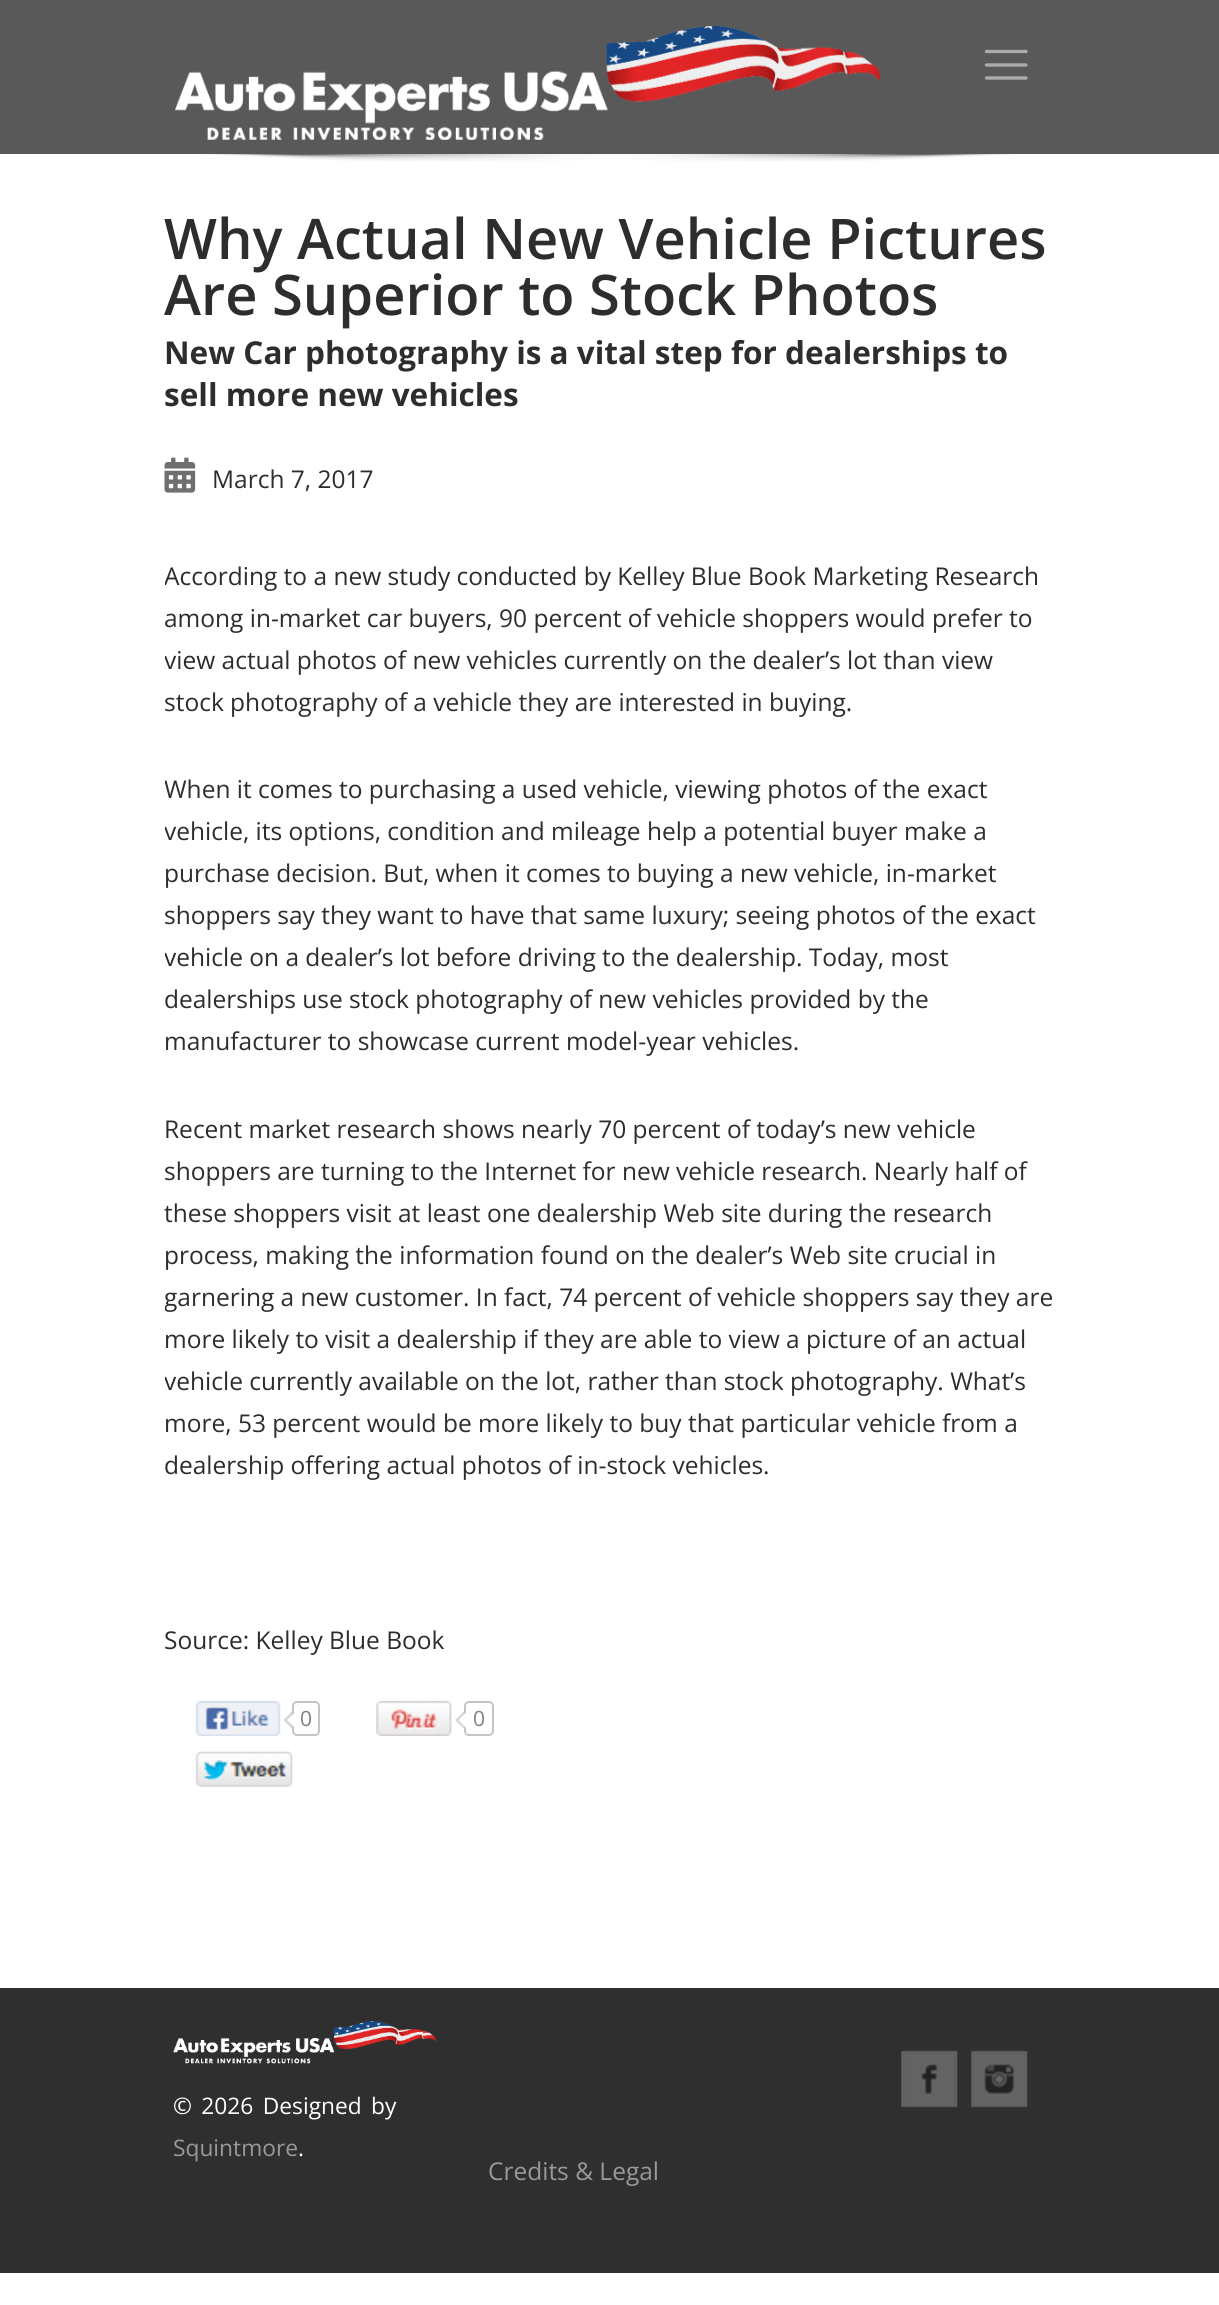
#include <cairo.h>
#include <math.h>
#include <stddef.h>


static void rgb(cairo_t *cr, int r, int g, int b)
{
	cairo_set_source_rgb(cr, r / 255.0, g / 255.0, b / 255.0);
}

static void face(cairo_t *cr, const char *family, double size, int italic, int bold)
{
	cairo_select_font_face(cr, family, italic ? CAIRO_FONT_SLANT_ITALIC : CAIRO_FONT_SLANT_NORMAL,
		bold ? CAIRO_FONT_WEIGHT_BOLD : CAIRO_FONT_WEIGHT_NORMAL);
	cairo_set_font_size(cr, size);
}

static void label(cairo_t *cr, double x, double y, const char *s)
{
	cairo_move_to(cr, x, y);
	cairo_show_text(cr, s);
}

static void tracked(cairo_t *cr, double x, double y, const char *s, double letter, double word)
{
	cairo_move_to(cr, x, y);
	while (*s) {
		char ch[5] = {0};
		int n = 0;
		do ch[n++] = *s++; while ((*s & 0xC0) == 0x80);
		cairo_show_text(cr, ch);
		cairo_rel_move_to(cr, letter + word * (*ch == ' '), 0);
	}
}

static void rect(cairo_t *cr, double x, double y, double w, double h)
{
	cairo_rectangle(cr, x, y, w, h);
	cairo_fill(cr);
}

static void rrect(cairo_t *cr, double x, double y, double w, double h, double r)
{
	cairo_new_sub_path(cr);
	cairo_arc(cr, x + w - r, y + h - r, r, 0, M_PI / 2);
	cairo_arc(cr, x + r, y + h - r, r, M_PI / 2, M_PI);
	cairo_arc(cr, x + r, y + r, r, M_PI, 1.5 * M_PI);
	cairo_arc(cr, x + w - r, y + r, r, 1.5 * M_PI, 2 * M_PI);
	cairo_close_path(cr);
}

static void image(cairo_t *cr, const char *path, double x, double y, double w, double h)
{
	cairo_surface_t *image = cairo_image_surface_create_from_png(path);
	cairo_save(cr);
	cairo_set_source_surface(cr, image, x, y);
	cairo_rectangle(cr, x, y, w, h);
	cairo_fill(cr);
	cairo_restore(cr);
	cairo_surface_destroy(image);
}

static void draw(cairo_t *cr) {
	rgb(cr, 255, 255, 255);
	cairo_paint(cr);
	rgb(cr, 89, 89, 89);
	rect(cr, 0, 0, 1219, 154);
	image(cr, "image0.png", 175, 26, 705, 114);
	cairo_new_path(cr);
	cairo_move_to(cr, 986.5, 51.5);
	cairo_line_to(cr, 1026, 51.5);
	cairo_move_to(cr, 986.5, 65);
	cairo_line_to(cr, 1026, 65);
	cairo_move_to(cr, 986.5, 78);
	cairo_line_to(cr, 1026, 78);
	rgb(cr, 172, 172, 172);
	cairo_set_line_width(cr, 3.3);
	cairo_set_line_cap(cr, CAIRO_LINE_CAP_ROUND);
	cairo_stroke(cr);
	image(cr, "image1.png", 202, 154, 815, 8);
	face(cr, "Open Sans SemiBold", 56, 0, 0);
	rgb(cr, 45, 45, 45);
	label(cr, 164, 259, "Why Actual New Vehicle Pictures");
	label(cr, 164, 315, "Are Superior to Stock Photos");
	face(cr, "Open Sans", 31.5, 0, 1);
	label(cr, 164, 364, "New Car photography is a vital step for dealerships to");
	label(cr, 164, 406, "sell more new vehicles");
	image(cr, "image2.png", 164, 457, 32, 36);
	face(cr, "Open Sans", 24.5, 0, 0);
	label(cr, 212, 488, "March 7, 2017");
	cairo_save(cr);
	cairo_rectangle(cr, 165, 509, 892, 1287);
	cairo_clip(cr);
	label(cr, 164, 585, "According to a new study conducted by Kelley Blue Book Marketing Research");
	label(cr, 164, 627, "among in-market car buyers, 90 percent of vehicle shoppers would prefer to");
	label(cr, 164, 669, "view actual photos of new vehicles currently on the dealer’s lot than view");
	label(cr, 164, 711, "stock photography of a vehicle they are interested in buying.");
	label(cr, 164, 798, "When it comes to purchasing a used vehicle, viewing photos of the exact");
	label(cr, 164, 840, "vehicle, its options, condition and mileage help a potential buyer make a");
	cairo_restore(cr);
	label(cr, 164, 882, "purchase decision. But, when it comes to buying a new vehicle, in-market");
	cairo_save(cr);
	cairo_rectangle(cr, 165, 509, 892, 1287);
	cairo_clip(cr);
	label(cr, 164, 924, "shoppers say they want to have that same luxury; seeing photos of the exact");
	label(cr, 164, 966, "vehicle on a dealer’s lot before driving to the dealership. Today, most");
	cairo_restore(cr);
	label(cr, 164, 1008, "dealerships use stock photography of new vehicles provided by the");
	label(cr, 164, 1050, "manufacturer to showcase current model-year vehicles.");
	label(cr, 164, 1138, "Recent market research shows nearly 70 percent of today’s new vehicle");
	cairo_save(cr);
	cairo_rectangle(cr, 165, 509, 892, 1287);
	cairo_clip(cr);
	label(cr, 164, 1180, "shoppers are turning to the Internet for new vehicle research. Nearly half of");
	cairo_restore(cr);
	label(cr, 164, 1222, "these shoppers visit at least one dealership Web site during the research");
	label(cr, 164, 1264, "process, making the information found on the dealer’s Web site crucial in");
	cairo_save(cr);
	cairo_rectangle(cr, 165, 509, 892, 1287);
	cairo_clip(cr);
	label(cr, 164, 1306, "garnering a new customer. In fact, 74 percent of vehicle shoppers say they are");
	cairo_restore(cr);
	label(cr, 164, 1348, "more likely to visit a dealership if they are able to view a picture of an actual");
	cairo_save(cr);
	cairo_rectangle(cr, 165, 509, 892, 1287);
	cairo_clip(cr);
	label(cr, 164, 1390, "vehicle currently available on the lot, rather than stock photography. What’s");
	cairo_restore(cr);
	label(cr, 164, 1432, "more, 53 percent would be more likely to buy that particular vehicle from a");
	label(cr, 164, 1474, "dealership offering actual photos of in-stock vehicles.");
	label(cr, 164, 1649, "Source: Kelley Blue Book");
	image(cr, "image3.png", 195, 1701, 86, 35);
	rrect(cr, 293, 1702, 26, 33, 4);
	rgb(cr, 196, 196, 196);
	cairo_set_line_width(cr, 2);
	cairo_set_line_cap(cr, CAIRO_LINE_CAP_BUTT);
	cairo_stroke(cr);
	rgb(cr, 214, 214, 214);
	cairo_new_path(cr);
	cairo_move_to(cr, 292, 1711.5);
	cairo_line_to(cr, 292, 1729);
	cairo_line_to(cr, 283.5, 1720);
	cairo_close_path(cr);
	cairo_fill(cr);
	face(cr, "Open Sans", 21, 0, 0);
	rgb(cr, 128, 128, 128);
	label(cr, 300, 1726, "0");
	rgb(cr, 255, 255, 255);
	cairo_new_path(cr);
	cairo_move_to(cr, 296, 1711.5);
	cairo_line_to(cr, 296, 1729);
	cairo_line_to(cr, 287, 1720);
	cairo_close_path(cr);
	cairo_fill(cr);
	image(cr, "image4.png", 376, 1701, 76, 35);
	rrect(cr, 465, 1702, 28, 33, 4);
	rgb(cr, 196, 196, 196);
	cairo_stroke(cr);
	rgb(cr, 214, 214, 214);
	cairo_new_path(cr);
	cairo_move_to(cr, 464, 1711.5);
	cairo_line_to(cr, 464, 1729);
	cairo_line_to(cr, 455, 1720);
	cairo_close_path(cr);
	cairo_fill(cr);
	rgb(cr, 128, 128, 128);
	label(cr, 473, 1726, "0");
	rgb(cr, 255, 255, 255);
	cairo_new_path(cr);
	cairo_move_to(cr, 467, 1711.5);
	cairo_line_to(cr, 467, 1729);
	cairo_line_to(cr, 458.5, 1720);
	cairo_close_path(cr);
	cairo_fill(cr);
	image(cr, "image5.png", 195, 1751, 98, 36);
	rgb(cr, 47, 47, 47);
	rect(cr, 0, 1988, 1219, 285);
	image(cr, "image6.png", 173, 2021, 263, 43);
	face(cr, "Open Sans", 22.75, 0, 0);
	rgb(cr, 255, 255, 255);
	tracked(cr, 173, 2114, "© 2026 Designed by", 0, 3.5);
	rgb(cr, 153, 153, 153);
	label(cr, 173, 2156, "Squintmore");
	rgb(cr, 255, 255, 255);
	label(cr, 298, 2156, ".");
	image(cr, "image7.png", 901, 2050, 57, 58);
	image(cr, "image8.png", 971, 2050, 57, 58);
	face(cr, "Open Sans", 24.5, 0, 0);
	rgb(cr, 153, 153, 153);
	label(cr, 488, 2180, "Credits & Legal");
}

int main(void) {
	cairo_surface_t *surface = cairo_image_surface_create(CAIRO_FORMAT_RGB24, 1219, 2305);
	cairo_t *cr = cairo_create(surface);
	cairo_font_options_t *options = cairo_font_options_create();
	cairo_font_options_set_hint_metrics(options, CAIRO_HINT_METRICS_OFF);
	cairo_font_options_set_hint_style(options, CAIRO_HINT_STYLE_NONE);
	cairo_set_font_options(cr, options);
	cairo_set_miter_limit(cr, 4);
	draw(cr);
	cairo_surface_write_to_png(surface, "render.png");
	cairo_font_options_destroy(options);
	cairo_destroy(cr);
	cairo_surface_destroy(surface);
	return 0;
}
